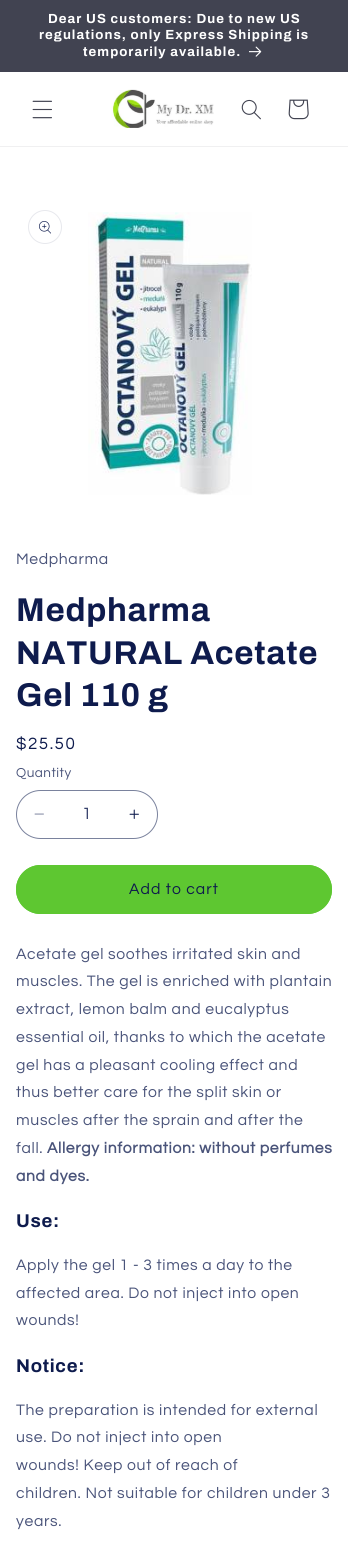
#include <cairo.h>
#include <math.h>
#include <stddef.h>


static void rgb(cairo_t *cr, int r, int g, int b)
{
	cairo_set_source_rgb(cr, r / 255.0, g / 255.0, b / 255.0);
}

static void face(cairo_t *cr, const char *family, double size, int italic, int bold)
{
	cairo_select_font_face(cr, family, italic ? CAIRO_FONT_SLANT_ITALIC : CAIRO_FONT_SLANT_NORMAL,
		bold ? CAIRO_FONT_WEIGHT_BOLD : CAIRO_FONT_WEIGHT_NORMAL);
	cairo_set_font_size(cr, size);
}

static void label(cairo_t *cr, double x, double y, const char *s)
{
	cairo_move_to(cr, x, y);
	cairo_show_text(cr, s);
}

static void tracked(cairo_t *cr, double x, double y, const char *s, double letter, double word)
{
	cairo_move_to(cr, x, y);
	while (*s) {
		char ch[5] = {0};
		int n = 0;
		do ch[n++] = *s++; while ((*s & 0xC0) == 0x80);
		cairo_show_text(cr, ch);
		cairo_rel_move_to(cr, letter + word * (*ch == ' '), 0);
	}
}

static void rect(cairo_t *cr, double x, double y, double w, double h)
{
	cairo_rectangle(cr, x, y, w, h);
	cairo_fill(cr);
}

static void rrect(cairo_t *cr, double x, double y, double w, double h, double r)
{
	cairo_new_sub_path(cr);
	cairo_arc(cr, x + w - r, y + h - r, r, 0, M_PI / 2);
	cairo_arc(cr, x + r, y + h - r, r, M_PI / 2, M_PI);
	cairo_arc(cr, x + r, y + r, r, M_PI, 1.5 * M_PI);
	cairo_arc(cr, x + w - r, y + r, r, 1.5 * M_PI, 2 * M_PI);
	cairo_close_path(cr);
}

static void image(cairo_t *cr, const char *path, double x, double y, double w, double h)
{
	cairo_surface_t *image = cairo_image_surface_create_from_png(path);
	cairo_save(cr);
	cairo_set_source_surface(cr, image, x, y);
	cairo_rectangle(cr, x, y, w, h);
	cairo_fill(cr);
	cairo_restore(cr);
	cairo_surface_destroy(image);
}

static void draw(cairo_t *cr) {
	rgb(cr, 255, 255, 255);
	cairo_paint(cr);
	rgb(cr, 65, 67, 81);
	rect(cr, 0, 0, 348, 72);
	face(cr, "Archivo", 13.2, 0, 1);
	rgb(cr, 255, 255, 255);
	tracked(cr, 48, 23, "Dear US customers: Due to new US", 1.05, 0);
	tracked(cr, 39, 39, "regulations, only Express Shipping is", 1.05, 0);
	tracked(cr, 83, 56, "temporarily available.", 1.05, 0);
	image(cr, "image0.png", 249, 46, 13, 11);
	rgb(cr, 240, 240, 241);
	rect(cr, 0, 146, 348, 1);
	image(cr, "image1.png", 32, 100, 20, 19);
	image(cr, "image2.png", 111, 89, 103, 39);
	image(cr, "image3.png", 241, 99, 20, 21);
	image(cr, "image4.png", 288, 99, 21, 21);
	cairo_arc(cr, 45, 227, 16.5, 0, 2 * M_PI);
	rgb(cr, 231, 232, 237);
	cairo_set_line_width(cr, 1);
	cairo_stroke(cr);
	image(cr, "image5.png", 39, 221, 12, 13);
	image(cr, "image6.png", 88, 212, 164, 283);
	face(cr, "Questrial", 15.75, 0, 0);
	rgb(cr, 74, 84, 122);
	tracked(cr, 16, 564, "Medpharma", 0.65, 0);
	face(cr, "Archivo", 33, 0, 1);
	rgb(cr, 14, 27, 77);
	tracked(cr, 16, 621, "Medpharma", 0.7, 0);
	tracked(cr, 16, 664, "NATURAL Acetate", 0.7, 0);
	tracked(cr, 16, 706, "Gel 110 g", 0.7, 0);
	face(cr, "Questrial", 17, 0, 0);
	tracked(cr, 16, 749, "$25.50", 1.5, 0);
	face(cr, "Questrial", 13.5, 0, 0);
	rgb(cr, 74, 84, 122);
	tracked(cr, 16, 777, "Quantity", 0.5, 0);
	image(cr, "image7.png", 34, 813, 10, 2);
	image(cr, "image8.png", 129, 809, 10, 10);
	rrect(cr, 16.5, 790.5, 141, 48, 24);
	rgb(cr, 122, 130, 157);
	cairo_stroke(cr);
	face(cr, "Questrial", 17, 0, 0);
	rgb(cr, 50, 61, 104);
	label(cr, 82, 819, "1");
	rgb(cr, 94, 199, 49);
	rrect(cr, 16, 865, 316, 49, 24.5);
	cairo_fill(cr);
	rrect(cr, 16.5, 865.5, 315, 48, 24);
	cairo_stroke(cr);
	face(cr, "Questrial", 15.75, 0, 0);
	rgb(cr, 14, 27, 77);
	tracked(cr, 129, 894, "Add to cart", 1.05, 0);
	rgb(cr, 74, 84, 122);
	tracked(cr, 16, 959, "Acetate gel soothes irritated skin and", 0.65, 0);
	tracked(cr, 16, 986, "muscles. The gel is enriched with plantain", 0.65, 0);
	tracked(cr, 16, 1014, "extract, lemon balm and eucalyptus", 0.65, 0);
	tracked(cr, 16, 1042, "essential oil, thanks to which the acetate", 0.65, 0);
	tracked(cr, 16, 1070, "gel has a pleasant cooling effect and", 0.65, 0);
	tracked(cr, 16, 1097, "thus better care for the split skin or", 0.65, 0);
	tracked(cr, 16, 1125, "muscles after the sprain and after the", 0.65, 0);
	tracked(cr, 16, 1153, "fall.", 0.65, 0);
	face(cr, "Questrial", 15.75, 0, 1);
	tracked(cr, 47, 1153, "Allergy information: without perfumes", 0.65, 0);
	tracked(cr, 16, 1181, "and dyes.", 0.65, 0);
	face(cr, "Archivo", 18.5, 0, 1);
	rgb(cr, 14, 27, 77);
	tracked(cr, 16, 1227, "Use:", 0.7, 0);
	face(cr, "Questrial", 15.75, 0, 0);
	rgb(cr, 74, 84, 122);
	tracked(cr, 16, 1270, "Apply the gel 1 - 3 times a day to the", 0.65, 0);
	tracked(cr, 16, 1298, "affected area. Do not inject into open", 0.65, 0);
	tracked(cr, 16, 1325, "wounds!", 0.65, 0);
	face(cr, "Archivo", 18.5, 0, 1);
	rgb(cr, 14, 27, 77);
	tracked(cr, 16, 1372, "Notice:", 0.7, 0);
	face(cr, "Questrial", 15.75, 0, 0);
	rgb(cr, 74, 84, 122);
	tracked(cr, 16, 1415, "The preparation is intended for external", 0.65, 0);
	tracked(cr, 16, 1442, "use. Do not inject into open", 0.65, 0);
	tracked(cr, 16, 1470, "wounds! Keep out of reach of", 0.65, 0);
	tracked(cr, 16, 1498, "children. Not suitable for children under 3", 0.65, 0);
	tracked(cr, 16, 1526, "years.", 0.65, 0);
}

int main(void) {
	cairo_surface_t *surface = cairo_image_surface_create(CAIRO_FORMAT_RGB24, 348, 1556);
	cairo_t *cr = cairo_create(surface);
	cairo_font_options_t *options = cairo_font_options_create();
	cairo_font_options_set_hint_metrics(options, CAIRO_HINT_METRICS_OFF);
	cairo_font_options_set_hint_style(options, CAIRO_HINT_STYLE_NONE);
	cairo_set_font_options(cr, options);
	cairo_set_miter_limit(cr, 4);
	draw(cr);
	cairo_surface_write_to_png(surface, "render.png");
	cairo_font_options_destroy(options);
	cairo_destroy(cr);
	cairo_surface_destroy(surface);
	return 0;
}
